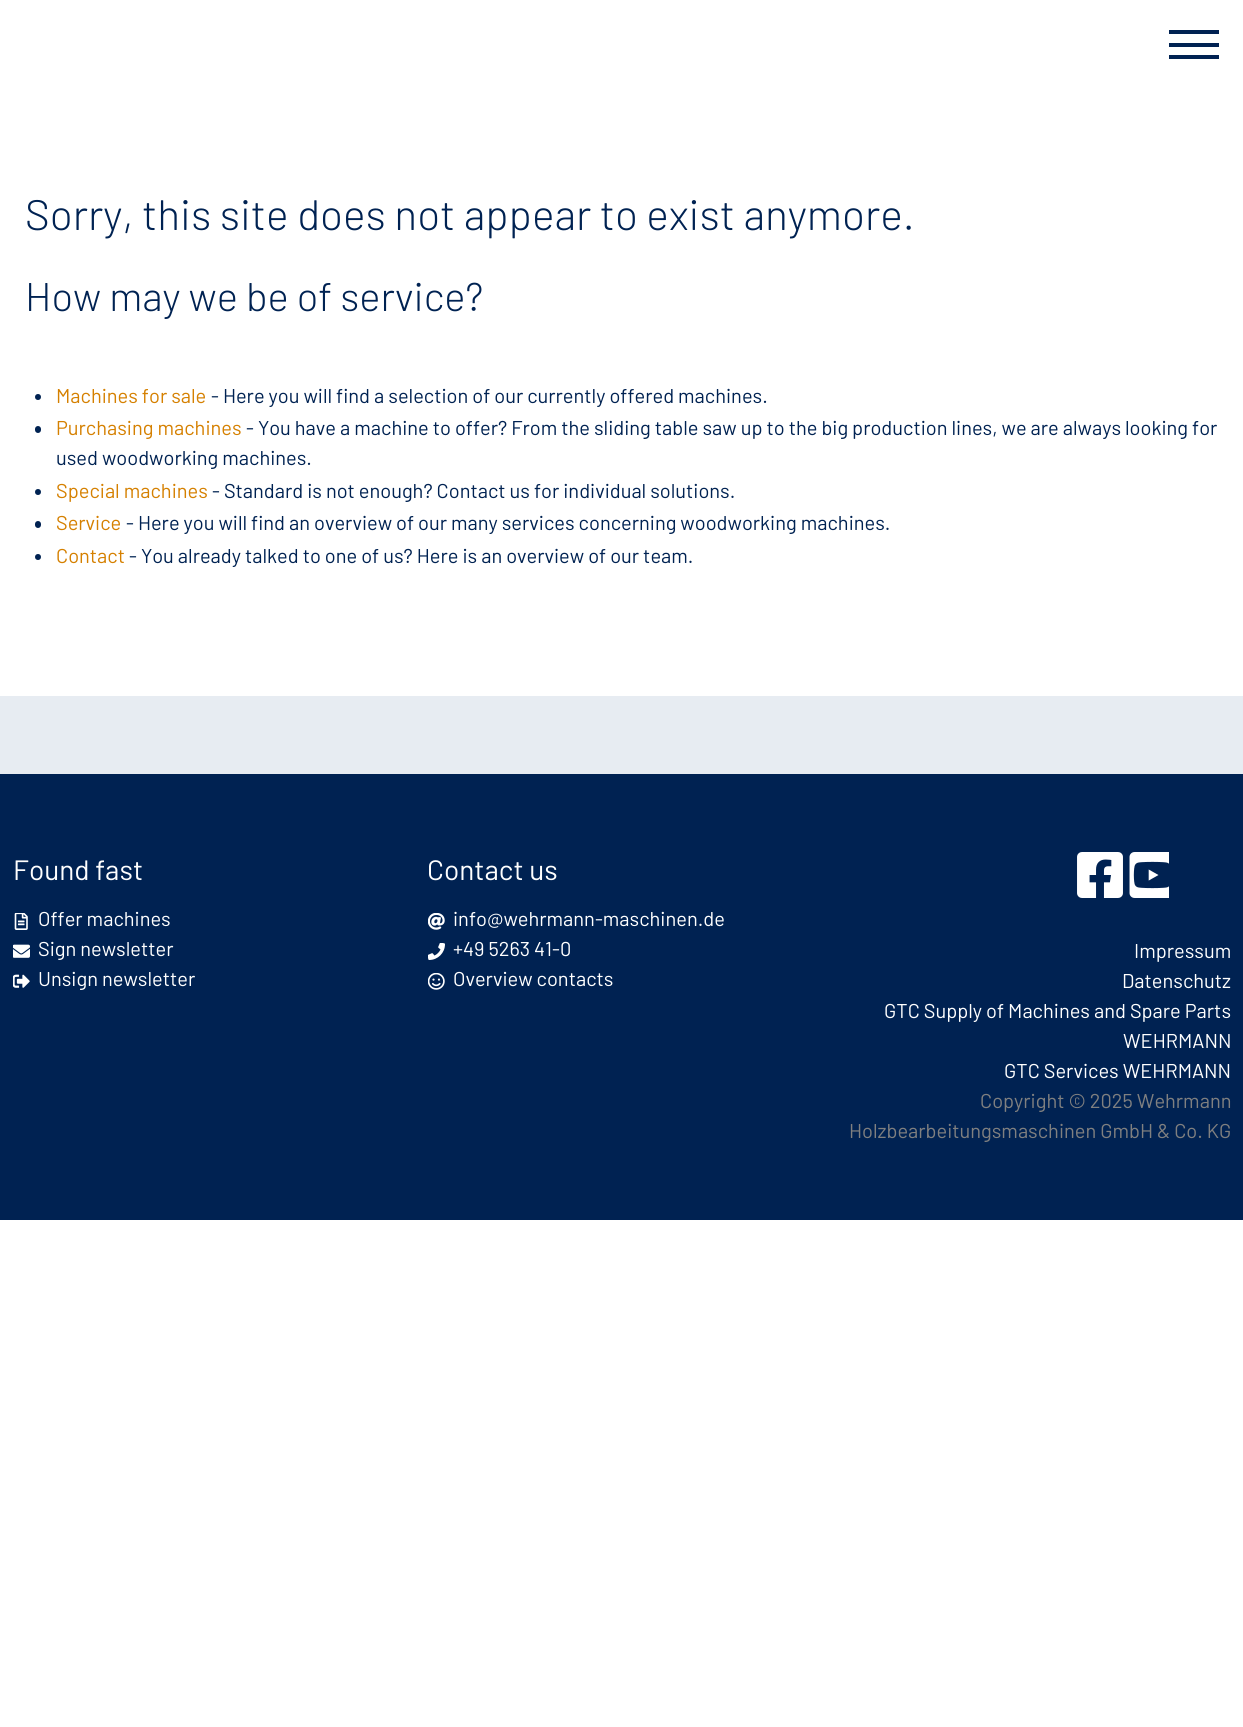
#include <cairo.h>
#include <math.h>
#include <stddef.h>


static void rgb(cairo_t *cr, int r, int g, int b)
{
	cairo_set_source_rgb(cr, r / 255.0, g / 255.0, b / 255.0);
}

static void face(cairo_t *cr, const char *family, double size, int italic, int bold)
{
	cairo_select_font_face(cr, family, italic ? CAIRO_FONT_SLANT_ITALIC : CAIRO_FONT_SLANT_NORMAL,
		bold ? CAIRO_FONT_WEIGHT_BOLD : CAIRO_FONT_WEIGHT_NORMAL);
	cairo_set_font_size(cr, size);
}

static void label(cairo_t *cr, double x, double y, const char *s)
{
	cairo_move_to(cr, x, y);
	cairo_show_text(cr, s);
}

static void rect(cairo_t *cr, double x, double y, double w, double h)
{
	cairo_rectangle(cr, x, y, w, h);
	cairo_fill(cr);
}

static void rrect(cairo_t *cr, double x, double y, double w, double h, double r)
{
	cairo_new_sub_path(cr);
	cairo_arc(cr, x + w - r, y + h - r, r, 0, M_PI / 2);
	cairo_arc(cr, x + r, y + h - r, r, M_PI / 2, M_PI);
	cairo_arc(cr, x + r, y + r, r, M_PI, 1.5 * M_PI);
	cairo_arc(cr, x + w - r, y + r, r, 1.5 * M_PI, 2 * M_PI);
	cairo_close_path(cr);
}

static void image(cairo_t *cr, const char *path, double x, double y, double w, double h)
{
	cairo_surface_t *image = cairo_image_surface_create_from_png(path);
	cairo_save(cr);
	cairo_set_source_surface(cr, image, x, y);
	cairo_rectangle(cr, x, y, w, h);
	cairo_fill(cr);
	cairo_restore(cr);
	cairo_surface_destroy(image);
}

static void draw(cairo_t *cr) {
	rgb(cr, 255, 255, 255);
	cairo_paint(cr);
	rgb(cr, 0, 34, 82);
	rect(cr, 1169, 30, 50, 4);
	rect(cr, 1169, 43, 50, 4);
	rect(cr, 1169, 55, 50, 4);
	face(cr, "Barlow Light", 42.5, 0, 0);
	label(cr, 25, 230, "Sorry, this site does not appear to exist anymore.");
	face(cr, "Barlow Light", 40, 0, 0);
	label(cr, 25, 311, "How may we be of service?");
	cairo_new_path(cr);
	cairo_arc(cr, 38, 397, 3, 0, 2 * M_PI);
	cairo_fill(cr);
	face(cr, "Barlow", 20, 0, 0);
	rgb(cr, 213, 128, 0);
	label(cr, 56, 403, "Machines for sale");
	rgb(cr, 0, 34, 82);
	label(cr, 211, 403, "- Here you will find a selection of our currently offered machines.");
	rrect(cr, 35, 426, 6, 7, 3);
	cairo_fill(cr);
	rgb(cr, 213, 128, 0);
	label(cr, 56, 435, "Purchasing machines");
	rgb(cr, 0, 34, 82);
	label(cr, 246, 435, "- You have a machine to offer? From the sliding table saw up to the big production lines, we are always looking for");
	label(cr, 56, 465, "used woodworking machines.");
	cairo_new_path(cr);
	cairo_arc(cr, 38, 492, 3, 0, 2 * M_PI);
	cairo_fill(cr);
	rgb(cr, 213, 128, 0);
	label(cr, 56, 498, "Special machines");
	rgb(cr, 0, 34, 82);
	label(cr, 212, 498, "- Standard is not enough? Contact us for individual solutions.");
	rrect(cr, 35, 521, 6, 7, 3);
	cairo_fill(cr);
	rgb(cr, 213, 128, 0);
	label(cr, 56, 530, "Service");
	rgb(cr, 0, 34, 82);
	label(cr, 126, 530, "- Here you will find an overview of our many services concerning woodworking machines.");
	cairo_new_path(cr);
	cairo_arc(cr, 38, 557, 3, 0, 2 * M_PI);
	cairo_fill(cr);
	rgb(cr, 213, 128, 0);
	label(cr, 56, 563, "Contact");
	rgb(cr, 0, 34, 82);
	label(cr, 129, 563, "- You already talked to one of us? Here is an overview of our team.");
	rgb(cr, 231, 236, 242);
	rect(cr, 0, 696, 1243, 78);
	rgb(cr, 0, 34, 82);
	rect(cr, 0, 774, 1243, 446);
	face(cr, "Barlow", 28, 0, 0);
	rgb(cr, 255, 255, 255);
	label(cr, 13, 880, "Found fast");
	image(cr, "image0.png", 14, 913, 14, 17);
	face(cr, "Barlow", 20, 0, 0);
	label(cr, 38, 926, "Offer machines");
	image(cr, "image1.png", 13, 944, 17, 14);
	label(cr, 38, 956, "Sign newsletter");
	image(cr, "image2.png", 13, 974, 17, 14);
	label(cr, 38, 986, "Unsign newsletter");
	face(cr, "Barlow", 28, 0, 0);
	label(cr, 427, 880, "Contact us");
	image(cr, "image3.png", 428, 913, 17, 17);
	face(cr, "Barlow", 20, 0, 0);
	label(cr, 453, 926, "info@wehrmann-maschinen.de");
	image(cr, "image4.png", 428, 943, 17, 17);
	label(cr, 453, 956, "+49 5263 41-0");
	image(cr, "image5.png", 428, 973, 17, 17);
	label(cr, 453, 986, "Overview contacts");
	image(cr, "image6.png", 1077, 852, 46, 46);
	image(cr, "image7.png", 1129, 852, 40, 46);
	label(cr, 1134, 958, "Impressum");
	label(cr, 1122, 988, "Datenschutz");
	label(cr, 884, 1018, "GTC Supply of Machines and Spare Parts");
	label(cr, 1123, 1048, "WEHRMANN");
	label(cr, 1004, 1078, "GTC Services WEHRMANN");
	rgb(cr, 128, 128, 128);
	label(cr, 980, 1108, "Copyright © 2025 Wehrmann");
	label(cr, 849, 1138, "Holzbearbeitungsmaschinen GmbH & Co. KG");
}

int main(void) {
	cairo_surface_t *surface = cairo_image_surface_create(CAIRO_FORMAT_RGB24, 1243, 1727);
	cairo_t *cr = cairo_create(surface);
	cairo_font_options_t *options = cairo_font_options_create();
	cairo_font_options_set_hint_metrics(options, CAIRO_HINT_METRICS_OFF);
	cairo_font_options_set_hint_style(options, CAIRO_HINT_STYLE_NONE);
	cairo_set_font_options(cr, options);
	cairo_set_miter_limit(cr, 4);
	draw(cr);
	cairo_surface_write_to_png(surface, "render.png");
	cairo_font_options_destroy(options);
	cairo_destroy(cr);
	cairo_surface_destroy(surface);
	return 0;
}
